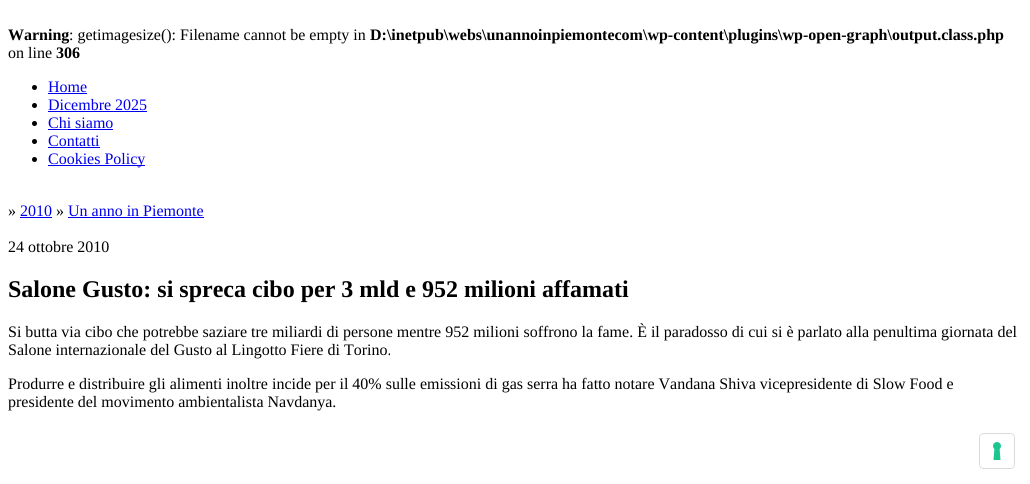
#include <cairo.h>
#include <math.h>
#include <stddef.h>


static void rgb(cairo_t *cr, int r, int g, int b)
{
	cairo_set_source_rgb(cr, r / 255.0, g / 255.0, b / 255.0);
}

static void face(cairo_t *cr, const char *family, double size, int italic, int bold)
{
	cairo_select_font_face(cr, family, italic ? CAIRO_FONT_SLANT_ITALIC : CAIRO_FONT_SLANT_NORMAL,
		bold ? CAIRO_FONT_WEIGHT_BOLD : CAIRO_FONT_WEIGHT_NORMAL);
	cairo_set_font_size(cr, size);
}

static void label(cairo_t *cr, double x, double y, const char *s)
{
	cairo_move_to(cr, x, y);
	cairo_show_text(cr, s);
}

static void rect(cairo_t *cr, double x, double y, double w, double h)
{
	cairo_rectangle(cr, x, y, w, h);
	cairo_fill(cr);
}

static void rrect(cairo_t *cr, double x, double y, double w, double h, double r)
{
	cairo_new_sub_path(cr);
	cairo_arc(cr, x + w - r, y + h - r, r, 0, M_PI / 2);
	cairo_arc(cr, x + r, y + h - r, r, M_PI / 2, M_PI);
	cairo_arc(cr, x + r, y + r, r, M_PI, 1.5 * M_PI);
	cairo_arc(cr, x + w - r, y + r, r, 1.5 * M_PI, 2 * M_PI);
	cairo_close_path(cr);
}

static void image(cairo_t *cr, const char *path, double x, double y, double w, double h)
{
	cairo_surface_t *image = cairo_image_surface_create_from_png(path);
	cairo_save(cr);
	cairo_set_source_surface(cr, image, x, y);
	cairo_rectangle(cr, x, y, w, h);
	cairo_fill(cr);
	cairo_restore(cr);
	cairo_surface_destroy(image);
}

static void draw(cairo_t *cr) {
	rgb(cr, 255, 255, 255);
	cairo_paint(cr);
	face(cr, "Liberation Serif", 16, 0, 1);
	rgb(cr, 0, 0, 0);
	label(cr, 8, 40, "Warning");
	face(cr, "Liberation Serif", 16, 0, 0);
	label(cr, 69, 40, ": getimagesize(): Filename cannot be empty in");
	face(cr, "Liberation Serif", 16, 0, 1);
	label(cr, 370, 40, "D:\\inetpub\\webs\\unannoinpiemontecom\\wp-content\\plugins\\wp-open-graph\\output.class.php");
	face(cr, "Liberation Serif", 16, 0, 0);
	label(cr, 8, 58, "on line");
	face(cr, "Liberation Serif", 16, 0, 1);
	label(cr, 56, 58, "306");
	cairo_new_path(cr);
	cairo_arc(cr, 34.5, 87.5, 2.5, 0, 2 * M_PI);
	cairo_fill(cr);
	face(cr, "Liberation Serif", 16, 0, 0);
	rgb(cr, 0, 0, 238);
	label(cr, 48, 92, "Home");
	rect(cr, 48, 93, 39, 1);
	rgb(cr, 0, 0, 0);
	cairo_new_path(cr);
	cairo_arc(cr, 34.5, 105.5, 2.5, 0, 2 * M_PI);
	cairo_fill(cr);
	rgb(cr, 0, 0, 238);
	label(cr, 48, 110, "Dicembre 2025");
	rect(cr, 48, 111, 99, 1);
	rgb(cr, 0, 0, 0);
	cairo_new_path(cr);
	cairo_arc(cr, 34.5, 123.5, 2.5, 0, 2 * M_PI);
	cairo_fill(cr);
	rgb(cr, 0, 0, 238);
	label(cr, 48, 128, "Chi siamo");
	rect(cr, 48, 129, 65, 1);
	rgb(cr, 0, 0, 0);
	cairo_new_path(cr);
	cairo_arc(cr, 34.5, 141.5, 2.5, 0, 2 * M_PI);
	cairo_fill(cr);
	rgb(cr, 0, 0, 238);
	label(cr, 48, 146, "Contatti");
	rect(cr, 48, 147, 52, 1);
	rgb(cr, 0, 0, 0);
	cairo_new_path(cr);
	cairo_arc(cr, 34.5, 159.5, 2.5, 0, 2 * M_PI);
	cairo_fill(cr);
	rgb(cr, 0, 0, 238);
	rect(cr, 48, 165, 97, 1);
	label(cr, 48, 164, "Cookies Policy");
	rgb(cr, 0, 0, 0);
	label(cr, 8, 216, "»");
	rgb(cr, 0, 0, 238);
	label(cr, 20, 216, "2010");
	rect(cr, 20, 217, 32, 1);
	rgb(cr, 0, 0, 0);
	label(cr, 56, 216, "»");
	rgb(cr, 0, 0, 238);
	label(cr, 68, 216, "Un anno in Piemonte");
	rect(cr, 68, 217, 136, 1);
	rgb(cr, 0, 0, 0);
	label(cr, 8, 252, "24 ottobre 2010");
	face(cr, "Liberation Serif", 24, 0, 1);
	label(cr, 8, 297, "Salone Gusto: si spreca cibo per 3 mld e 952 milioni affamati");
	face(cr, "Liberation Serif", 16, 0, 0);
	label(cr, 8, 337, "Si butta via cibo che potrebbe saziare tre miliardi di persone mentre 952 milioni soffrono la fame. È il paradosso di cui si è parlato alla penultima giornata del");
	label(cr, 8, 355, "Salone internazionale del Gusto al Lingotto Fiere di Torino.");
	label(cr, 8, 389, "Produrre e distribuire gli alimenti inoltre incide per il 40% sulle emissioni di gas serra ha fatto notare Vandana Shiva vicepresidente di Slow Food e");
	label(cr, 8, 407, "presidente del movimento ambientalista Navdanya.");
	rrect(cr, 979.5, 433.5, 35, 35, 4.5);
	rgb(cr, 217, 217, 217);
	cairo_set_line_width(cr, 1);
	cairo_stroke(cr);
	rgb(cr, 255, 255, 255);
	rrect(cr, 980, 434, 34, 34, 4);
	cairo_fill(cr);
	image(cr, "image0.png", 993, 442, 8, 18);
}

int main(void) {
	cairo_surface_t *surface = cairo_image_surface_create(CAIRO_FORMAT_RGB24, 1030, 484);
	cairo_t *cr = cairo_create(surface);
	cairo_font_options_t *options = cairo_font_options_create();
	cairo_font_options_set_hint_metrics(options, CAIRO_HINT_METRICS_OFF);
	cairo_font_options_set_hint_style(options, CAIRO_HINT_STYLE_NONE);
	cairo_set_font_options(cr, options);
	cairo_set_miter_limit(cr, 4);
	draw(cr);
	cairo_surface_write_to_png(surface, "render.png");
	cairo_font_options_destroy(options);
	cairo_destroy(cr);
	cairo_surface_destroy(surface);
	return 0;
}
